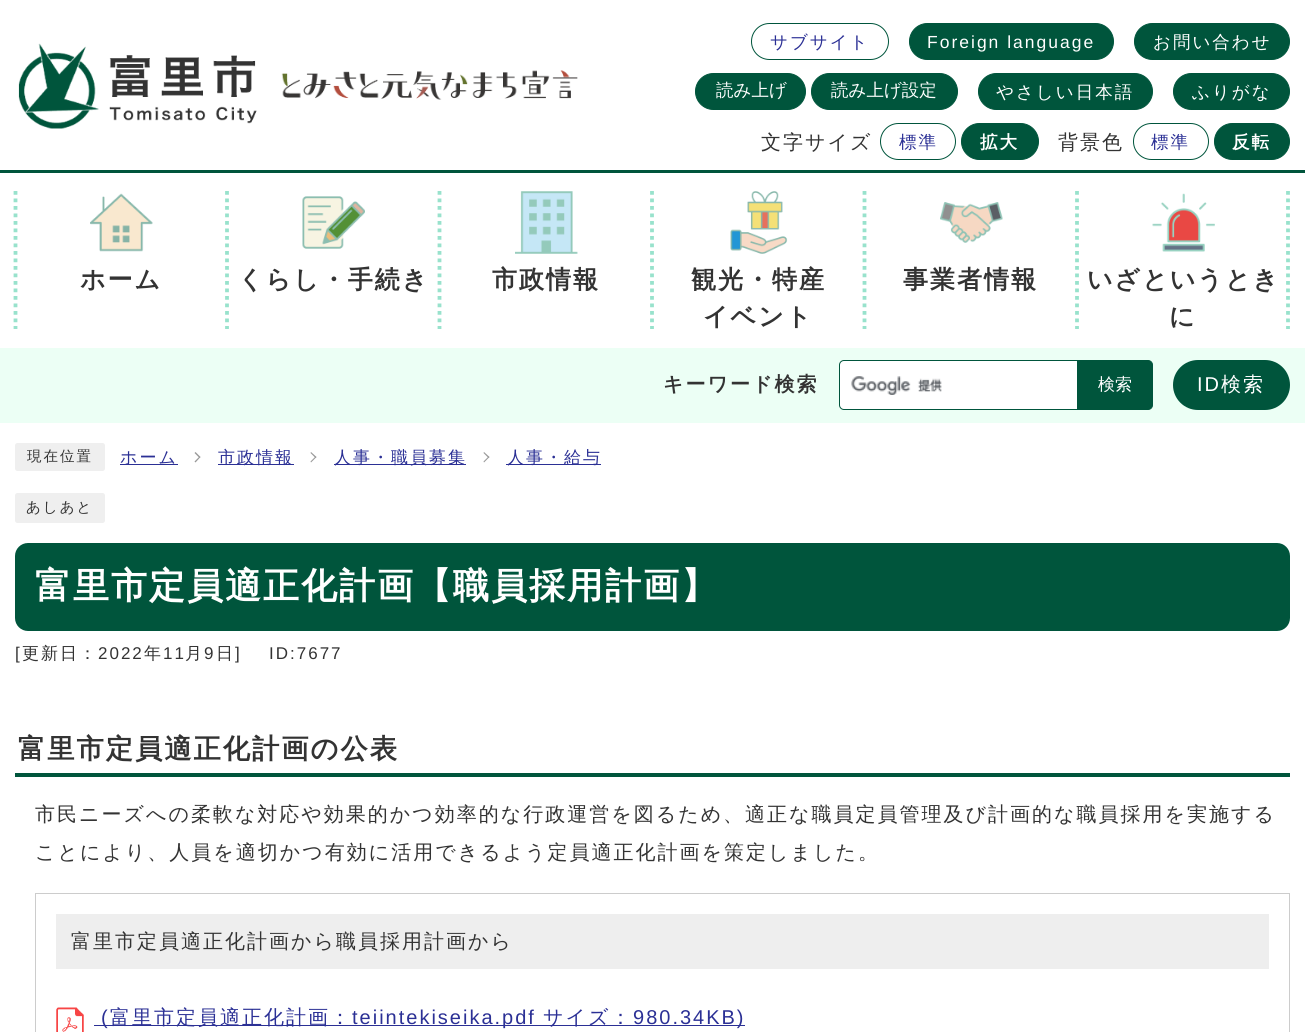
#include <cairo.h>
#include <math.h>
#include <stddef.h>


static void rgb(cairo_t *cr, int r, int g, int b)
{
	cairo_set_source_rgb(cr, r / 255.0, g / 255.0, b / 255.0);
}

static void face(cairo_t *cr, const char *family, double size, int italic, int bold)
{
	cairo_select_font_face(cr, family, italic ? CAIRO_FONT_SLANT_ITALIC : CAIRO_FONT_SLANT_NORMAL,
		bold ? CAIRO_FONT_WEIGHT_BOLD : CAIRO_FONT_WEIGHT_NORMAL);
	cairo_set_font_size(cr, size);
}

static void label(cairo_t *cr, double x, double y, const char *s)
{
	cairo_move_to(cr, x, y);
	cairo_show_text(cr, s);
}

static void tracked(cairo_t *cr, double x, double y, const char *s, double letter, double word)
{
	cairo_move_to(cr, x, y);
	while (*s) {
		char ch[5] = {0};
		int n = 0;
		do ch[n++] = *s++; while ((*s & 0xC0) == 0x80);
		cairo_show_text(cr, ch);
		cairo_rel_move_to(cr, letter + word * (*ch == ' '), 0);
	}
}

static void rect(cairo_t *cr, double x, double y, double w, double h)
{
	cairo_rectangle(cr, x, y, w, h);
	cairo_fill(cr);
}

static void rrect(cairo_t *cr, double x, double y, double w, double h, double r)
{
	cairo_new_sub_path(cr);
	cairo_arc(cr, x + w - r, y + h - r, r, 0, M_PI / 2);
	cairo_arc(cr, x + r, y + h - r, r, M_PI / 2, M_PI);
	cairo_arc(cr, x + r, y + r, r, M_PI, 1.5 * M_PI);
	cairo_arc(cr, x + w - r, y + r, r, 1.5 * M_PI, 2 * M_PI);
	cairo_close_path(cr);
}

static void image(cairo_t *cr, const char *path, double x, double y, double w, double h)
{
	cairo_surface_t *image = cairo_image_surface_create_from_png(path);
	cairo_save(cr);
	cairo_set_source_surface(cr, image, x, y);
	cairo_rectangle(cr, x, y, w, h);
	cairo_fill(cr);
	cairo_restore(cr);
	cairo_surface_destroy(image);
}

static void draw(cairo_t *cr) {
	rgb(cr, 255, 255, 255);
	cairo_paint(cr);
	rgb(cr, 0, 85, 60);
	rect(cr, 0, 170, 1305, 3);
	image(cr, "image0.png", 18, 43, 239, 86);
	image(cr, "image1.png", 281, 70, 297, 30);
	rrect(cr, 751.5, 23.5, 137, 36, 18);
	cairo_set_line_width(cr, 1);
	cairo_stroke(cr);
	face(cr, "WenQuanYi Zen Hei Medium", 17.5, 0, 0);
	rgb(cr, 43, 48, 149);
	tracked(cr, 770, 48, "サブサイト", 2, 0);
	rgb(cr, 0, 85, 60);
	rrect(cr, 909.5, 23.5, 204, 36, 18);
	cairo_fill_preserve(cr);
	cairo_stroke(cr);
	face(cr, "Liberation Sans", 17.5, 0, 0);
	rgb(cr, 255, 255, 255);
	tracked(cr, 927, 48, "Foreign language", 2, 0);
	rgb(cr, 0, 85, 60);
	rrect(cr, 1134.5, 23.5, 155, 36, 18);
	cairo_fill_preserve(cr);
	cairo_stroke(cr);
	face(cr, "WenQuanYi Zen Hei Medium", 17.5, 0, 0);
	rgb(cr, 255, 255, 255);
	tracked(cr, 1153, 48, "お問い合わせ", 2, 0);
	rgb(cr, 0, 85, 60);
	rrect(cr, 695.5, 73.5, 110, 36, 18);
	cairo_fill_preserve(cr);
	cairo_stroke(cr);
	rgb(cr, 255, 255, 255);
	label(cr, 716, 96, "読み上げ");
	rgb(cr, 0, 85, 60);
	rrect(cr, 811.5, 73.5, 146, 36, 18);
	cairo_fill_preserve(cr);
	cairo_stroke(cr);
	rgb(cr, 255, 255, 255);
	label(cr, 831, 96, "読み上げ設定");
	rgb(cr, 0, 85, 60);
	rrect(cr, 978.5, 73.5, 174, 36, 18);
	cairo_fill_preserve(cr);
	cairo_stroke(cr);
	rgb(cr, 255, 255, 255);
	tracked(cr, 996, 98, "やさしい日本語", 2, 0);
	rgb(cr, 0, 85, 60);
	rrect(cr, 1173.5, 73.5, 116, 36, 18);
	cairo_fill_preserve(cr);
	cairo_stroke(cr);
	rgb(cr, 255, 255, 255);
	tracked(cr, 1192, 98, "ふりがな", 2, 0);
	face(cr, "WenQuanYi Zen Hei Medium", 20, 0, 0);
	rgb(cr, 51, 51, 51);
	tracked(cr, 761, 149, "文字サイズ", 2, 0);
	rrect(cr, 880.5, 123.5, 75, 36, 18);
	rgb(cr, 0, 85, 60);
	cairo_stroke(cr);
	face(cr, "WenQuanYi Zen Hei Medium", 17.5, 0, 0);
	rgb(cr, 43, 48, 149);
	tracked(cr, 899, 148, "標準", 2, 0);
	rgb(cr, 0, 85, 60);
	rrect(cr, 961.5, 123.5, 77, 36, 18);
	cairo_fill_preserve(cr);
	cairo_stroke(cr);
	face(cr, "WenQuanYi Zen Hei", 17.5, 0, 1);
	rgb(cr, 255, 255, 255);
	tracked(cr, 980, 148, "拡大", 2, 0);
	face(cr, "WenQuanYi Zen Hei Medium", 20, 0, 0);
	rgb(cr, 51, 51, 51);
	tracked(cr, 1058, 149, "背景色", 2, 0);
	rrect(cr, 1133.5, 123.5, 75, 36, 18);
	rgb(cr, 0, 85, 60);
	cairo_stroke(cr);
	face(cr, "WenQuanYi Zen Hei Medium", 17.5, 0, 0);
	rgb(cr, 43, 48, 149);
	tracked(cr, 1151, 148, "標準", 2, 0);
	rgb(cr, 0, 85, 60);
	rrect(cr, 1214.5, 123.5, 75, 36, 18);
	cairo_fill_preserve(cr);
	cairo_stroke(cr);
	face(cr, "WenQuanYi Zen Hei", 17.5, 0, 1);
	rgb(cr, 255, 255, 255);
	tracked(cr, 1232, 148, "反転", 2, 0);
	image(cr, "image2.png", 90, 193, 63, 59);
	cairo_new_path(cr);
	cairo_move_to(cr, 15.5, 191);
	cairo_line_to(cr, 15.5, 329);
	rgb(cr, 152, 226, 204);
	cairo_set_line_width(cr, 3.8);
	cairo_set_dash(cr, (double[]){3.75, 3.75}, 2, 0);
	cairo_stroke(cr);
	face(cr, "WenQuanYi Zen Hei", 25, 0, 1);
	rgb(cr, 51, 51, 51);
	tracked(cr, 80, 288, "ホーム", 2, 0);
	image(cr, "image3.png", 302, 196, 63, 53);
	cairo_new_path(cr);
	cairo_move_to(cr, 227, 191);
	cairo_line_to(cr, 227, 329);
	rgb(cr, 152, 226, 204);
	cairo_stroke(cr);
	rgb(cr, 51, 51, 51);
	tracked(cr, 238, 288, "くらし・手続き", 2, 0);
	image(cr, "image4.png", 515, 191, 63, 63);
	cairo_new_path(cr);
	cairo_move_to(cr, 439.5, 191);
	cairo_line_to(cr, 439.5, 329);
	rgb(cr, 152, 226, 204);
	cairo_stroke(cr);
	rgb(cr, 51, 51, 51);
	tracked(cr, 492, 288, "市政情報", 2, 0);
	image(cr, "image5.png", 730, 191, 58, 63);
	cairo_new_path(cr);
	cairo_move_to(cr, 652, 191);
	cairo_line_to(cr, 652, 329);
	rgb(cr, 152, 226, 204);
	cairo_stroke(cr);
	rgb(cr, 51, 51, 51);
	tracked(cr, 691, 288, "観光・特産", 2, 0);
	tracked(cr, 703, 325, "イベント", 2, 0);
	image(cr, "image6.png", 940, 202, 63, 41);
	cairo_new_path(cr);
	cairo_move_to(cr, 864.5, 191);
	cairo_line_to(cr, 864.5, 329);
	rgb(cr, 152, 226, 204);
	cairo_stroke(cr);
	rgb(cr, 51, 51, 51);
	tracked(cr, 903, 288, "事業者情報", 2, 0);
	image(cr, "image7.png", 1152, 193, 63, 59);
	cairo_new_path(cr);
	cairo_move_to(cr, 1077, 191);
	cairo_line_to(cr, 1077, 329);
	rgb(cr, 152, 226, 204);
	cairo_stroke(cr);
	rgb(cr, 51, 51, 51);
	tracked(cr, 1087, 288, "いざというとき", 2, 0);
	tracked(cr, 1169, 325, "に", 2, 0);
	cairo_new_path(cr);
	cairo_move_to(cr, 1288, 191);
	cairo_line_to(cr, 1288, 329);
	rgb(cr, 152, 226, 204);
	cairo_stroke(cr);
	rgb(cr, 236, 255, 245);
	rect(cr, 0, 348, 1305, 75);
	face(cr, "WenQuanYi Zen Hei", 20, 0, 1);
	rgb(cr, 51, 51, 51);
	tracked(cr, 663, 391, "キーワード検索", 2, 0);
	rgb(cr, 255, 255, 255);
	cairo_new_path(cr);
	cairo_move_to(cr, 844, 360);
	cairo_line_to(cr, 1078, 360);
	cairo_line_to(cr, 1078, 410);
	cairo_line_to(cr, 844, 410);
	cairo_curve_to(cr, 841, 410, 839, 408, 839, 405);
	cairo_line_to(cr, 839, 365);
	cairo_curve_to(cr, 839, 362, 841, 360, 844, 360);
	cairo_close_path(cr);
	cairo_fill(cr);
	image(cr, "image8.png", 851, 376, 91, 19);
	cairo_new_path(cr);
	cairo_move_to(cr, 844, 360.5);
	cairo_line_to(cr, 1077.5, 360.5);
	cairo_line_to(cr, 1077.5, 409.5);
	cairo_line_to(cr, 844, 409.5);
	cairo_curve_to(cr, 841.5, 409.5, 839.5, 407.5, 839.5, 405);
	cairo_line_to(cr, 839.5, 365);
	cairo_curve_to(cr, 839.5, 362.5, 841.5, 360.5, 844, 360.5);
	cairo_close_path(cr);
	rgb(cr, 0, 85, 60);
	cairo_set_line_width(cr, 1);
	cairo_set_dash(cr, NULL, 0, 0);
	cairo_stroke(cr);
	cairo_new_path(cr);
	cairo_move_to(cr, 1078.5, 360.5);
	cairo_line_to(cr, 1148, 360.5);
	cairo_curve_to(cr, 1150.5, 360.5, 1152.5, 362.5, 1152.5, 365);
	cairo_line_to(cr, 1152.5, 405);
	cairo_curve_to(cr, 1152.5, 407.5, 1150.5, 409.5, 1148, 409.5);
	cairo_line_to(cr, 1078.5, 409.5);
	cairo_close_path(cr);
	cairo_fill_preserve(cr);
	cairo_stroke(cr);
	face(cr, "WenQuanYi Zen Hei Medium", 17, 0, 0);
	rgb(cr, 255, 255, 255);
	label(cr, 1098, 390, "検索");
	rgb(cr, 0, 85, 60);
	rrect(cr, 1173, 360, 117, 50, 25);
	cairo_fill(cr);
	face(cr, "Liberation Sans", 20, 0, 0);
	rgb(cr, 255, 255, 255);
	tracked(cr, 1197, 391, "ID", 2, 0);
	face(cr, "WenQuanYi Zen Hei Medium", 20, 0, 0);
	tracked(cr, 1221, 391, "検索", 2, 0);
	rgb(cr, 239, 239, 239);
	rrect(cr, 15, 443, 90, 28, 2.5);
	cairo_fill(cr);
	face(cr, "WenQuanYi Zen Hei Medium", 14.5, 0, 0);
	rgb(cr, 51, 51, 51);
	tracked(cr, 27, 461, "現在位置", 2, 0);
	rgb(cr, 43, 48, 149);
	rect(cr, 120, 464, 58, 1);
	face(cr, "WenQuanYi Zen Hei Medium", 17, 0, 0);
	tracked(cr, 120, 463, "ホーム", 2, 0);
	rgb(cr, 153, 153, 153);
	cairo_new_path(cr);
	cairo_move_to(cr, 194.5, 453);
	cairo_line_to(cr, 195.5, 452);
	cairo_line_to(cr, 200.5, 457);
	cairo_line_to(cr, 199.5, 458);
	cairo_close_path(cr);
	cairo_fill(cr);
	cairo_new_path(cr);
	cairo_move_to(cr, 194.5, 461.5);
	cairo_line_to(cr, 199.5, 456.5);
	cairo_line_to(cr, 200.5, 457);
	cairo_line_to(cr, 195.5, 462.5);
	cairo_close_path(cr);
	cairo_fill(cr);
	rgb(cr, 43, 48, 149);
	rect(cr, 218, 464, 76, 1);
	tracked(cr, 218, 463, "市政情報", 2, 0);
	rgb(cr, 153, 153, 153);
	cairo_new_path(cr);
	cairo_move_to(cr, 310.5, 453);
	cairo_line_to(cr, 311, 452);
	cairo_line_to(cr, 316.5, 457);
	cairo_line_to(cr, 315.5, 458);
	cairo_close_path(cr);
	cairo_fill(cr);
	cairo_new_path(cr);
	cairo_move_to(cr, 310.5, 461.5);
	cairo_line_to(cr, 315.5, 456.5);
	cairo_line_to(cr, 316.5, 457);
	cairo_line_to(cr, 311, 462.5);
	cairo_close_path(cr);
	cairo_fill(cr);
	rgb(cr, 43, 48, 149);
	rect(cr, 334, 464, 132, 1);
	tracked(cr, 334, 463, "人事・職員募集", 2, 0);
	rgb(cr, 153, 153, 153);
	cairo_new_path(cr);
	cairo_move_to(cr, 483.5, 453);
	cairo_line_to(cr, 484, 452);
	cairo_line_to(cr, 489.5, 457);
	cairo_line_to(cr, 488.5, 458);
	cairo_close_path(cr);
	cairo_fill(cr);
	cairo_new_path(cr);
	cairo_move_to(cr, 483.5, 461.5);
	cairo_line_to(cr, 488.5, 456.5);
	cairo_line_to(cr, 489.5, 457);
	cairo_line_to(cr, 484, 462.5);
	cairo_close_path(cr);
	cairo_fill(cr);
	rgb(cr, 43, 48, 149);
	rect(cr, 506, 464, 95, 1);
	tracked(cr, 507, 463, "人事・給与", 2, 0);
	rgb(cr, 239, 239, 239);
	rrect(cr, 15, 493, 90, 30, 2.5);
	cairo_fill(cr);
	face(cr, "WenQuanYi Zen Hei Medium", 14.5, 0, 0);
	rgb(cr, 51, 51, 51);
	tracked(cr, 26, 512, "あしあと", 2, 0);
	rgb(cr, 0, 85, 60);
	rrect(cr, 15, 543, 1275, 88, 13);
	cairo_fill(cr);
	face(cr, "WenQuanYi Zen Hei", 36, 0, 1);
	rgb(cr, 255, 255, 255);
	tracked(cr, 35, 598, "富里市定員適正化計画【職員採用計画】", 2, 0);
	face(cr, "Liberation Sans", 17, 0, 0);
	rgb(cr, 51, 51, 51);
	tracked(cr, 15, 659, "[", 2, 0);
	face(cr, "WenQuanYi Zen Hei Medium", 17, 0, 0);
	tracked(cr, 22, 659, "更新日：", 2, 0);
	face(cr, "Liberation Sans", 17, 0, 0);
	tracked(cr, 98, 659, "2022", 2, 0);
	face(cr, "WenQuanYi Zen Hei Medium", 17, 0, 0);
	tracked(cr, 144, 659, "年", 2, 0);
	face(cr, "Liberation Sans", 17, 0, 0);
	tracked(cr, 163, 659, "11", 2, 0);
	face(cr, "WenQuanYi Zen Hei Medium", 17, 0, 0);
	tracked(cr, 185, 659, "月", 2, 0);
	face(cr, "Liberation Sans", 17, 0, 0);
	tracked(cr, 204, 659, "9", 2, 0);
	face(cr, "WenQuanYi Zen Hei Medium", 17, 0, 0);
	tracked(cr, 216, 659, "日", 2, 0);
	face(cr, "Liberation Sans", 17, 0, 0);
	tracked(cr, 235, 659, "]", 2, 0);
	tracked(cr, 269, 659, "ID:7677", 2, 0);
	rgb(cr, 0, 85, 60);
	rect(cr, 15, 773, 1275, 4);
	face(cr, "WenQuanYi Zen Hei", 27.25, 0, 1);
	rgb(cr, 51, 51, 51);
	tracked(cr, 18, 758, "富里市定員適正化計画の公表", 2, 0);
	face(cr, "WenQuanYi Zen Hei Medium", 20, 0, 0);
	tracked(cr, 35, 821, "市民ニーズへの柔軟な対応や効果的かつ効率的な行政運営を図るため、適正な職員定員管理及び計画的な職員採用を実施する", 2, 0);
	tracked(cr, 35, 859, "ことにより、人員を適切かつ有効に活用できるよう定員適正化計画を策定しました。", 2, 0);
	cairo_rectangle(cr, 35.5, 893.5, 1254, 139);
	rgb(cr, 204, 204, 204);
	cairo_stroke(cr);
	rgb(cr, 238, 238, 238);
	rect(cr, 56, 914, 1213, 55);
	rgb(cr, 51, 51, 51);
	tracked(cr, 71, 948, "富里市定員適正化計画から職員採用計画から", 2, 0);
	image(cr, "image9.png", 56, 1007, 28, 25);
	rgb(cr, 43, 48, 149);
	rect(cr, 94, 1025, 651, 1);
	face(cr, "Liberation Sans", 20, 0, 0);
	tracked(cr, 101, 1024, "(", 2, 0);
	face(cr, "WenQuanYi Zen Hei Medium", 20, 0, 0);
	tracked(cr, 110, 1024, "富里市定員適正化計画：", 2, 0);
	face(cr, "Liberation Sans", 20, 0, 0);
	tracked(cr, 352, 1024, "teiintekiseika.pdf", 2, 0);
	face(cr, "WenQuanYi Zen Hei Medium", 20, 0, 0);
	tracked(cr, 543, 1024, "サイズ：", 2, 0);
	face(cr, "Liberation Sans", 20, 0, 0);
	tracked(cr, 633, 1024, "980.34KB)", 2, 0);
}

int main(void) {
	cairo_surface_t *surface = cairo_image_surface_create(CAIRO_FORMAT_RGB24, 1305, 1032);
	cairo_t *cr = cairo_create(surface);
	cairo_font_options_t *options = cairo_font_options_create();
	cairo_font_options_set_hint_metrics(options, CAIRO_HINT_METRICS_OFF);
	cairo_font_options_set_hint_style(options, CAIRO_HINT_STYLE_NONE);
	cairo_set_font_options(cr, options);
	cairo_set_miter_limit(cr, 4);
	draw(cr);
	cairo_surface_write_to_png(surface, "render.png");
	cairo_font_options_destroy(options);
	cairo_destroy(cr);
	cairo_surface_destroy(surface);
	return 0;
}
